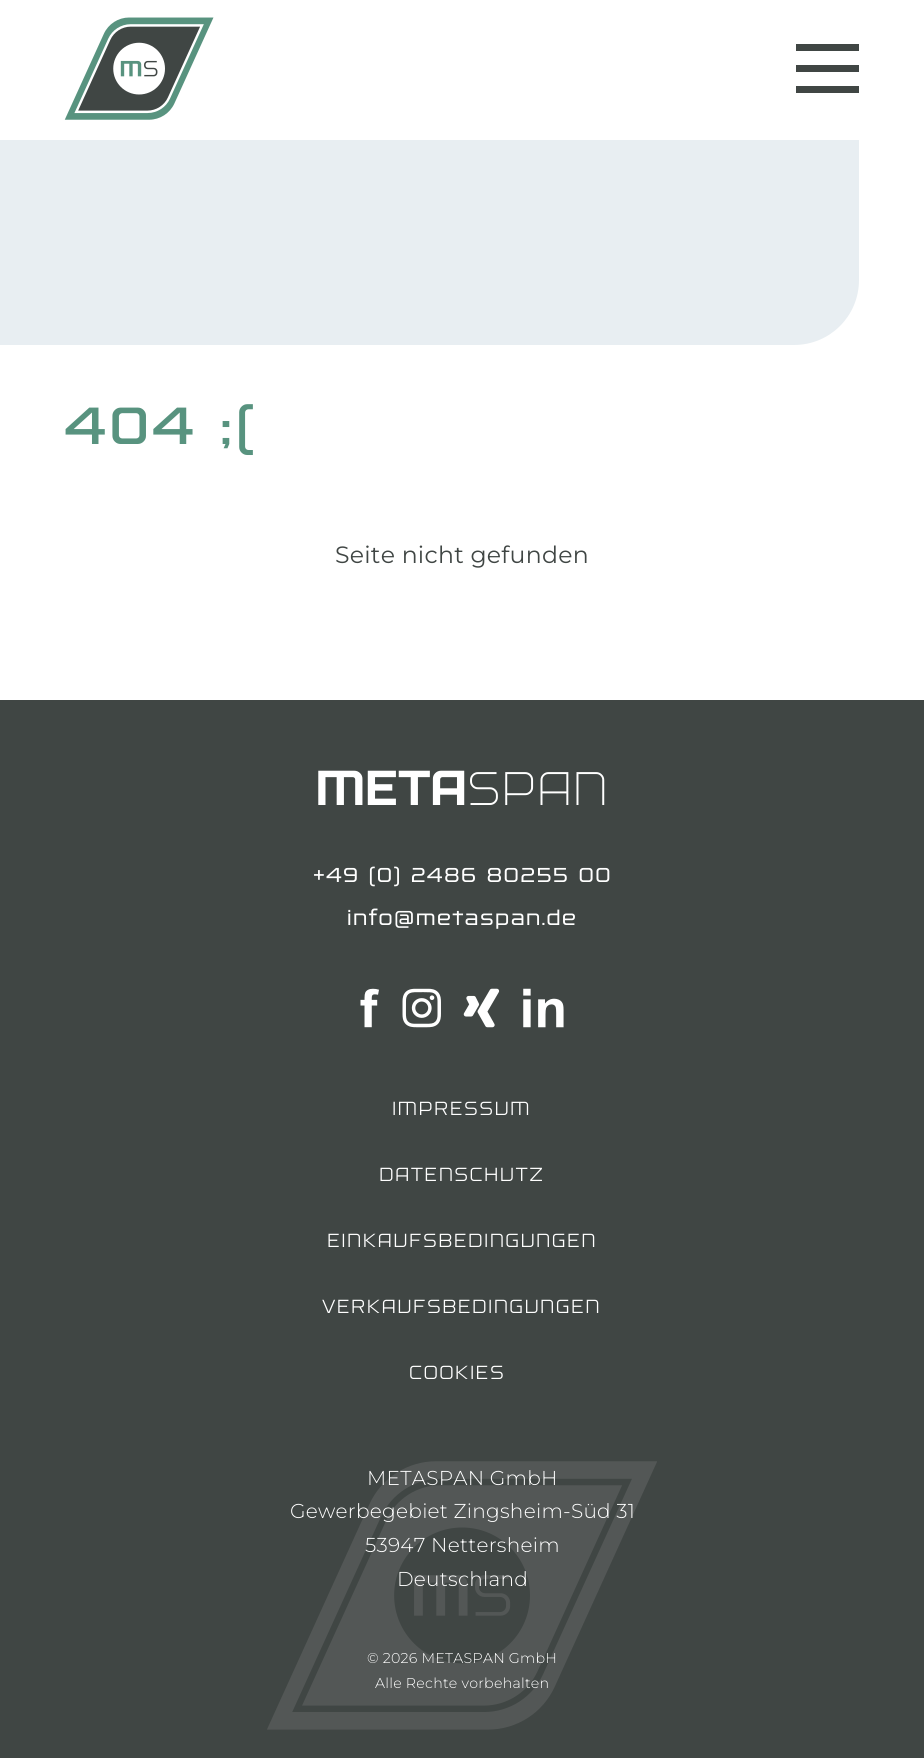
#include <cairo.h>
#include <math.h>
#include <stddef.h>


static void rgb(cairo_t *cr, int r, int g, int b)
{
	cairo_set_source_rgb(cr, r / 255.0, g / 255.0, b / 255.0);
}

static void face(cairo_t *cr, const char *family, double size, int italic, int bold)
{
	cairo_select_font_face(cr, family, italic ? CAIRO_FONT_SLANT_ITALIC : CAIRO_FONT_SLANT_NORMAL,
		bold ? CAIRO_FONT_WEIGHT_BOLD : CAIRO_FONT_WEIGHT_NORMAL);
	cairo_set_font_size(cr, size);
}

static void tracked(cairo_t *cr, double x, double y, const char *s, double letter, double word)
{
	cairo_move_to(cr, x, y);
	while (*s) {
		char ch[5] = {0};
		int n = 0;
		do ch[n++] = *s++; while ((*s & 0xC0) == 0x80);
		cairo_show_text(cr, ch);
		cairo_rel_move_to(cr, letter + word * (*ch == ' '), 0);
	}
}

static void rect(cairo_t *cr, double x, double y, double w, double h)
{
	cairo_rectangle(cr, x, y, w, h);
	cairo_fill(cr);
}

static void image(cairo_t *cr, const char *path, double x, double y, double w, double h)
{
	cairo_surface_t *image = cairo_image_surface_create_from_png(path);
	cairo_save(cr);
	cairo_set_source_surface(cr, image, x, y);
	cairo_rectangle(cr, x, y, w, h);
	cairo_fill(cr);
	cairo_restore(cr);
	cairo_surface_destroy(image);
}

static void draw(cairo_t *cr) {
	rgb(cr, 255, 255, 255);
	cairo_paint(cr);
	rgb(cr, 232, 238, 242);
	cairo_new_path(cr);
	cairo_move_to(cr, 0, 130);
	cairo_line_to(cr, 859, 130);
	cairo_line_to(cr, 859, 280);
	cairo_curve_to(cr, 859, 316, 830, 345, 794, 345);
	cairo_line_to(cr, 0, 345);
	cairo_close_path(cr);
	cairo_fill(cr);
	rgb(cr, 255, 255, 255);
	rect(cr, 0, 130, 859, 10);
	image(cr, "image0.png", 64, 17, 150, 103);
	rgb(cr, 64, 70, 68);
	rect(cr, 796, 65, 63, 7);
	rect(cr, 796, 44, 63, 7);
	rect(cr, 796, 86, 63, 7);
	face(cr, "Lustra", 52, 0, 0);
	rgb(cr, 88, 147, 127);
	tracked(cr, 65, 444, "404 ;(", 3.5, 0);
	face(cr, "Montserrat Thin", 23.6, 0, 0);
	rgb(cr, 64, 70, 68);
	tracked(cr, 335, 563, "Seite nicht gefunden", 0.25, 0);
	rect(cr, 0, 700, 924, 1058);
	face(cr, "Lustra", 47, 0, 1);
	rgb(cr, 255, 255, 255);
	tracked(cr, 315, 805, "META", 0.25, 0);
	face(cr, "Lustra ExtraLight", 47, 0, 0);
	tracked(cr, 467, 805, "SPAN", 0.25, 0);
	face(cr, "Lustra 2", 20.1, 0, 0);
	tracked(cr, 313, 882, "+49 (0) 2486 80255 00", 1.4, 0);
	tracked(cr, 347, 925, "info@metaspan.de", 1.4, 0);
	image(cr, "image1.png", 360, 988, 19, 40);
	image(cr, "image2.png", 402, 988, 39, 40);
	image(cr, "image3.png", 463, 988, 37, 40);
	image(cr, "image4.png", 523, 988, 41, 40);
	face(cr, "Lustra Light", 18.9, 0, 0);
	tracked(cr, 392, 1115, "IMPRESSUM", 1.3, 0);
	tracked(cr, 379, 1181, "DATENSCHUTZ", 1.3, 0);
	tracked(cr, 327, 1247, "EINKAUFSBEDINGUNGEN", 1.3, 0);
	tracked(cr, 322, 1313, "VERKAUFSBEDINGUNGEN", 1.3, 0);
	tracked(cr, 409, 1379, "COOKIES", 1.3, 0);
	image(cr, "image5.png", 267, 1461, 390, 269);
	face(cr, "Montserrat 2 Thin", 20.1, 0, 0);
	tracked(cr, 367, 1485, "METASPAN GmbH", 0.25, 0);
	tracked(cr, 290, 1518, "Gewerbegebiet Zingsheim-Süd 31", 0.25, 0);
	tracked(cr, 365, 1552, "53947 Nettersheim", 0.25, 0);
	tracked(cr, 397, 1586, "Deutschland", 0.25, 0);
	face(cr, "Montserrat 2 Thin", 14.2, 0, 0);
	tracked(cr, 367, 1663, "© 2026 METASPAN GmbH", 0.25, 0);
	tracked(cr, 375, 1688, "Alle Rechte vorbehalten", 0.25, 0);
}

int main(void) {
	cairo_surface_t *surface = cairo_image_surface_create(CAIRO_FORMAT_RGB24, 924, 1758);
	cairo_t *cr = cairo_create(surface);
	cairo_font_options_t *options = cairo_font_options_create();
	cairo_font_options_set_hint_metrics(options, CAIRO_HINT_METRICS_OFF);
	cairo_font_options_set_hint_style(options, CAIRO_HINT_STYLE_NONE);
	cairo_set_font_options(cr, options);
	cairo_set_miter_limit(cr, 4);
	draw(cr);
	cairo_surface_write_to_png(surface, "render.png");
	cairo_font_options_destroy(options);
	cairo_destroy(cr);
	cairo_surface_destroy(surface);
	return 0;
}
